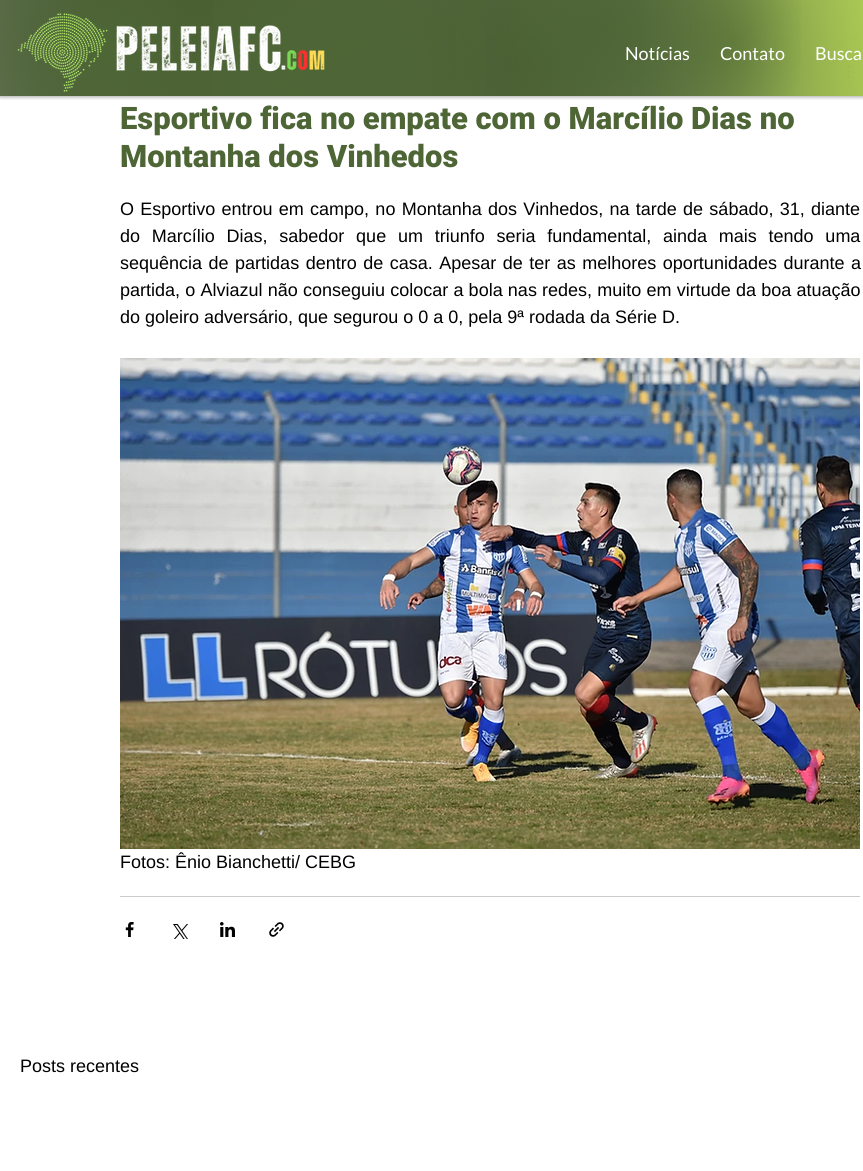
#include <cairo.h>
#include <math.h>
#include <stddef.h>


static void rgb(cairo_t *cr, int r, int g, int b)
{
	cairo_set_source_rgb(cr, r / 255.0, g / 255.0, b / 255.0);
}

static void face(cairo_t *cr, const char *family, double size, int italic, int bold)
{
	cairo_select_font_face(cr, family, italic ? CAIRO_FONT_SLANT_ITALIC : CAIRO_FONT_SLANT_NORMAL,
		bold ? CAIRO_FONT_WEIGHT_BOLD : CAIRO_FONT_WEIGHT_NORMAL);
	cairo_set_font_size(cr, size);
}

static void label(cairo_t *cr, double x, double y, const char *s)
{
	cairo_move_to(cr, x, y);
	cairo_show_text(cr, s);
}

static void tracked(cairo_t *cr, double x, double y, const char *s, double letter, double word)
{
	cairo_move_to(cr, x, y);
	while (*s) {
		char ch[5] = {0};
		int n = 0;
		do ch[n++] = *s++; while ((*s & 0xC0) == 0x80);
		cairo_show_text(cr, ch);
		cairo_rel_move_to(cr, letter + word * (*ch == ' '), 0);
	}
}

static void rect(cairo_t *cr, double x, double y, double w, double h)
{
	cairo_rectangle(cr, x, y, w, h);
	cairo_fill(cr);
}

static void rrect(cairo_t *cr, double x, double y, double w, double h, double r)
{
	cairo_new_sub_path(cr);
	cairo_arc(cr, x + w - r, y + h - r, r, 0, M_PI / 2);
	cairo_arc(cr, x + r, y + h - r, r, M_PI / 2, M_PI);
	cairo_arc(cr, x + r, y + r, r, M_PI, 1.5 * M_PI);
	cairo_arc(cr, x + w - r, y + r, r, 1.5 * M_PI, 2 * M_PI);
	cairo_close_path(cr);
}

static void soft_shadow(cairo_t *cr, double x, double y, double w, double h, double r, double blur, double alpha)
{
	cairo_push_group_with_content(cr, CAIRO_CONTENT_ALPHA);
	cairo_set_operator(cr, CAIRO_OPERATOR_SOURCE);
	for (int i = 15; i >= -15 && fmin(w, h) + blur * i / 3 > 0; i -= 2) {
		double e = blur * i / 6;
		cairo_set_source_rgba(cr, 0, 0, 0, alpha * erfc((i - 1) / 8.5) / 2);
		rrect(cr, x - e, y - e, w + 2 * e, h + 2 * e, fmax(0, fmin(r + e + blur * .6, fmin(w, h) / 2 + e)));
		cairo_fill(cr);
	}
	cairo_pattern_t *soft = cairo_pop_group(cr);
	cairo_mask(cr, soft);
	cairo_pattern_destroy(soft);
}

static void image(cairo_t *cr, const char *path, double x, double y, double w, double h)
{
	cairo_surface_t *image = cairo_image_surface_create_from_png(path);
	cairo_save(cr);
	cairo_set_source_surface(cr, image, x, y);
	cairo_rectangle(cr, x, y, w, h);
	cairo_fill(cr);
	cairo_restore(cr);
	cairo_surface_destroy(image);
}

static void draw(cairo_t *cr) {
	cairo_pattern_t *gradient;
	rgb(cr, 255, 255, 255);
	cairo_paint(cr);
	image(cr, "image1.png", 847, 65, 3, 13);
	cairo_save(cr);
	cairo_rectangle(cr, 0, 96, 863, 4);
	cairo_clip(cr);
	rgb(cr, 0, 0, 0);
	soft_shadow(cr, 0, 0, 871, 96, 0, 2.5, 0.5);
	cairo_restore(cr);
	gradient = cairo_pattern_create_radial(479, 48, 0, 479, 48, 503);
	cairo_pattern_add_color_stop_rgba(gradient, 0, 1, 1, 1, 1);
	cairo_pattern_add_color_stop_rgba(gradient, 1, 1, 1, 1, 0);
	cairo_set_source(cr, gradient);
	cairo_pattern_destroy(gradient);
	rect(cr, 847, 65, 3, 13);
	gradient = cairo_pattern_create_radial(532, 61, 0, 532, 61, 535);
	cairo_pattern_add_color_stop_rgba(gradient, 0, 0.306, 0.4, 0.212, 1);
	cairo_pattern_add_color_stop_rgba(gradient, 0.7, 0.306, 0.4, 0.212, 0);
	cairo_set_source(cr, gradient);
	cairo_pattern_destroy(gradient);
	rect(cr, 164, 0, 699, 96);
	gradient = cairo_pattern_create_radial(185, 20, 0, 185, 20, 798);
	cairo_pattern_add_color_stop_rgba(gradient, 0, 0.137, 0.18, 0.094, 1);
	cairo_pattern_add_color_stop_rgba(gradient, 0.7, 0.137, 0.18, 0.094, 0);
	cairo_set_source(cr, gradient);
	cairo_pattern_destroy(gradient);
	rect(cr, 0, 0, 732, 96);
	gradient = cairo_pattern_create_radial(300, 85, 0, 300, 85, 686);
	cairo_pattern_add_color_stop_rgba(gradient, 0, 0.306, 0.4, 0.212, 0.99);
	cairo_pattern_add_color_stop_rgba(gradient, 0.5, 0.306, 0.4, 0.212, 0);
	cairo_set_source(cr, gradient);
	cairo_pattern_destroy(gradient);
	rect(cr, 0, 0, 615, 96);
	gradient = cairo_pattern_create_radial(980, 48, 0, 980, 48, 981);
	cairo_pattern_add_color_stop_rgba(gradient, 0, 0.729, 0.855, 0.333, 1);
	cairo_pattern_add_color_stop_rgba(gradient, 0.4, 0.729, 0.855, 0.333, 0);
	cairo_set_source(cr, gradient);
	cairo_pattern_destroy(gradient);
	rect(cr, 596, 0, 267, 96);
	gradient = cairo_pattern_create_radial(980, 96, 0, 980, 96, 985);
	cairo_pattern_add_color_stop_rgba(gradient, 0, 0.729, 0.855, 0.333, 1);
	cairo_pattern_add_color_stop_rgba(gradient, 0.35, 0.729, 0.855, 0.333, 0);
	cairo_set_source(cr, gradient);
	cairo_pattern_destroy(gradient);
	rect(cr, 645, 0, 218, 96);
	gradient = cairo_pattern_create_radial(117, 50, 0, 117, 50, 865);
	cairo_pattern_add_color_stop_rgba(gradient, 0, 0.306, 0.4, 0.212, 1);
	cairo_pattern_add_color_stop_rgba(gradient, 0.35, 0.306, 0.4, 0.212, 0);
	cairo_set_source(cr, gradient);
	cairo_pattern_destroy(gradient);
	rect(cr, 0, 0, 307, 96);
	gradient = cairo_pattern_create_radial(734, 42, 0, 734, 42, 736);
	cairo_pattern_add_color_stop_rgba(gradient, 0, 0.306, 0.4, 0.212, 1);
	cairo_pattern_add_color_stop_rgba(gradient, 0.35, 0.306, 0.4, 0.212, 0);
	cairo_set_source(cr, gradient);
	cairo_pattern_destroy(gradient);
	rect(cr, 519, 0, 344, 96);
	gradient = cairo_pattern_create_radial(980, 4.2, 0, 980, 4.2, 984);
	cairo_pattern_add_color_stop_rgba(gradient, 0, 0.729, 0.855, 0.333, 1);
	cairo_pattern_add_color_stop_rgba(gradient, 0.35, 0.729, 0.855, 0.333, 0);
	cairo_set_source(cr, gradient);
	cairo_pattern_destroy(gradient);
	rect(cr, 643, 0, 220, 96);
	gradient = cairo_pattern_create_radial(597, 28, 0, 597, 28, 601);
	cairo_pattern_add_color_stop_rgba(gradient, 0, 0.306, 0.4, 0.212, 1);
	cairo_pattern_add_color_stop_rgba(gradient, 0.35, 0.306, 0.4, 0.212, 0);
	cairo_set_source(cr, gradient);
	cairo_pattern_destroy(gradient);
	rect(cr, 456, 0, 345, 96);
	gradient = cairo_pattern_create_radial(355, 46, 0, 355, 46, 627);
	cairo_pattern_add_color_stop_rgba(gradient, 0, 0.306, 0.4, 0.212, 1);
	cairo_pattern_add_color_stop_rgba(gradient, 0.35, 0.306, 0.4, 0.212, 0);
	cairo_set_source(cr, gradient);
	cairo_pattern_destroy(gradient);
	rect(cr, 213, 0, 273, 96);
	image(cr, "image0.png", 17, 13, 308, 79);
	face(cr, "Lato", 18, 0, 0);
	rgb(cr, 255, 255, 255);
	label(cr, 625, 60, "Notícias");
	label(cr, 720, 60, "Contato");
	label(cr, 815, 60, "Busca");
	face(cr, "Roboto Black", 31, 0, 0);
	rgb(cr, 78, 102, 54);
	label(cr, 120, 129, "Esportivo fica no empate com o Marcílio Dias no");
	label(cr, 120, 167, "Montanha dos Vinhedos");
	face(cr, "Liberation Sans", 18, 0, 0);
	rgb(cr, 0, 0, 0);
	tracked(cr, 120, 215, "O Esportivo entrou em campo, no Montanha dos Vinhedos, na tarde de sábado, 31, diante", 0, 1.25);
	tracked(cr, 120, 242, "do Marcílio Dias, sabedor que um triunfo seria fundamental, ainda mais tendo uma", 0, 6.75);
	tracked(cr, 120, 269, "sequência de partidas dentro de casa. Apesar de ter as melhores oportunidades durante a", 0, 1.5);
	tracked(cr, 120, 296, "partida, o Alviazul não conseguiu colocar a bola nas redes, muito em virtude da boa atuação", 0, 0.2);
	label(cr, 120, 323, "do goleiro adversário, que segurou o 0 a 0, pela 9ª rodada da Série D.");
	image(cr, "image2.png", 120, 358, 740, 491);
	label(cr, 120, 868, "Fotos: Ênio Bianchetti/ CEBG");
	rgb(cr, 204, 204, 204);
	rect(cr, 120, 896, 740, 1);
	image(cr, "image3.png", 125, 922, 9, 15);
	image(cr, "image4.png", 173, 924, 15, 15);
	image(cr, "image5.png", 220, 922, 15, 15);
	image(cr, "image6.png", 269, 922, 15, 15);
	rgb(cr, 0, 0, 0);
	label(cr, 20, 1072, "Posts recentes");
}

int main(void) {
	cairo_surface_t *surface = cairo_image_surface_create(CAIRO_FORMAT_RGB24, 863, 1171);
	cairo_t *cr = cairo_create(surface);
	cairo_font_options_t *options = cairo_font_options_create();
	cairo_font_options_set_hint_metrics(options, CAIRO_HINT_METRICS_OFF);
	cairo_font_options_set_hint_style(options, CAIRO_HINT_STYLE_NONE);
	cairo_set_font_options(cr, options);
	cairo_set_miter_limit(cr, 4);
	draw(cr);
	cairo_surface_write_to_png(surface, "render.png");
	cairo_font_options_destroy(options);
	cairo_destroy(cr);
	cairo_surface_destroy(surface);
	return 0;
}
